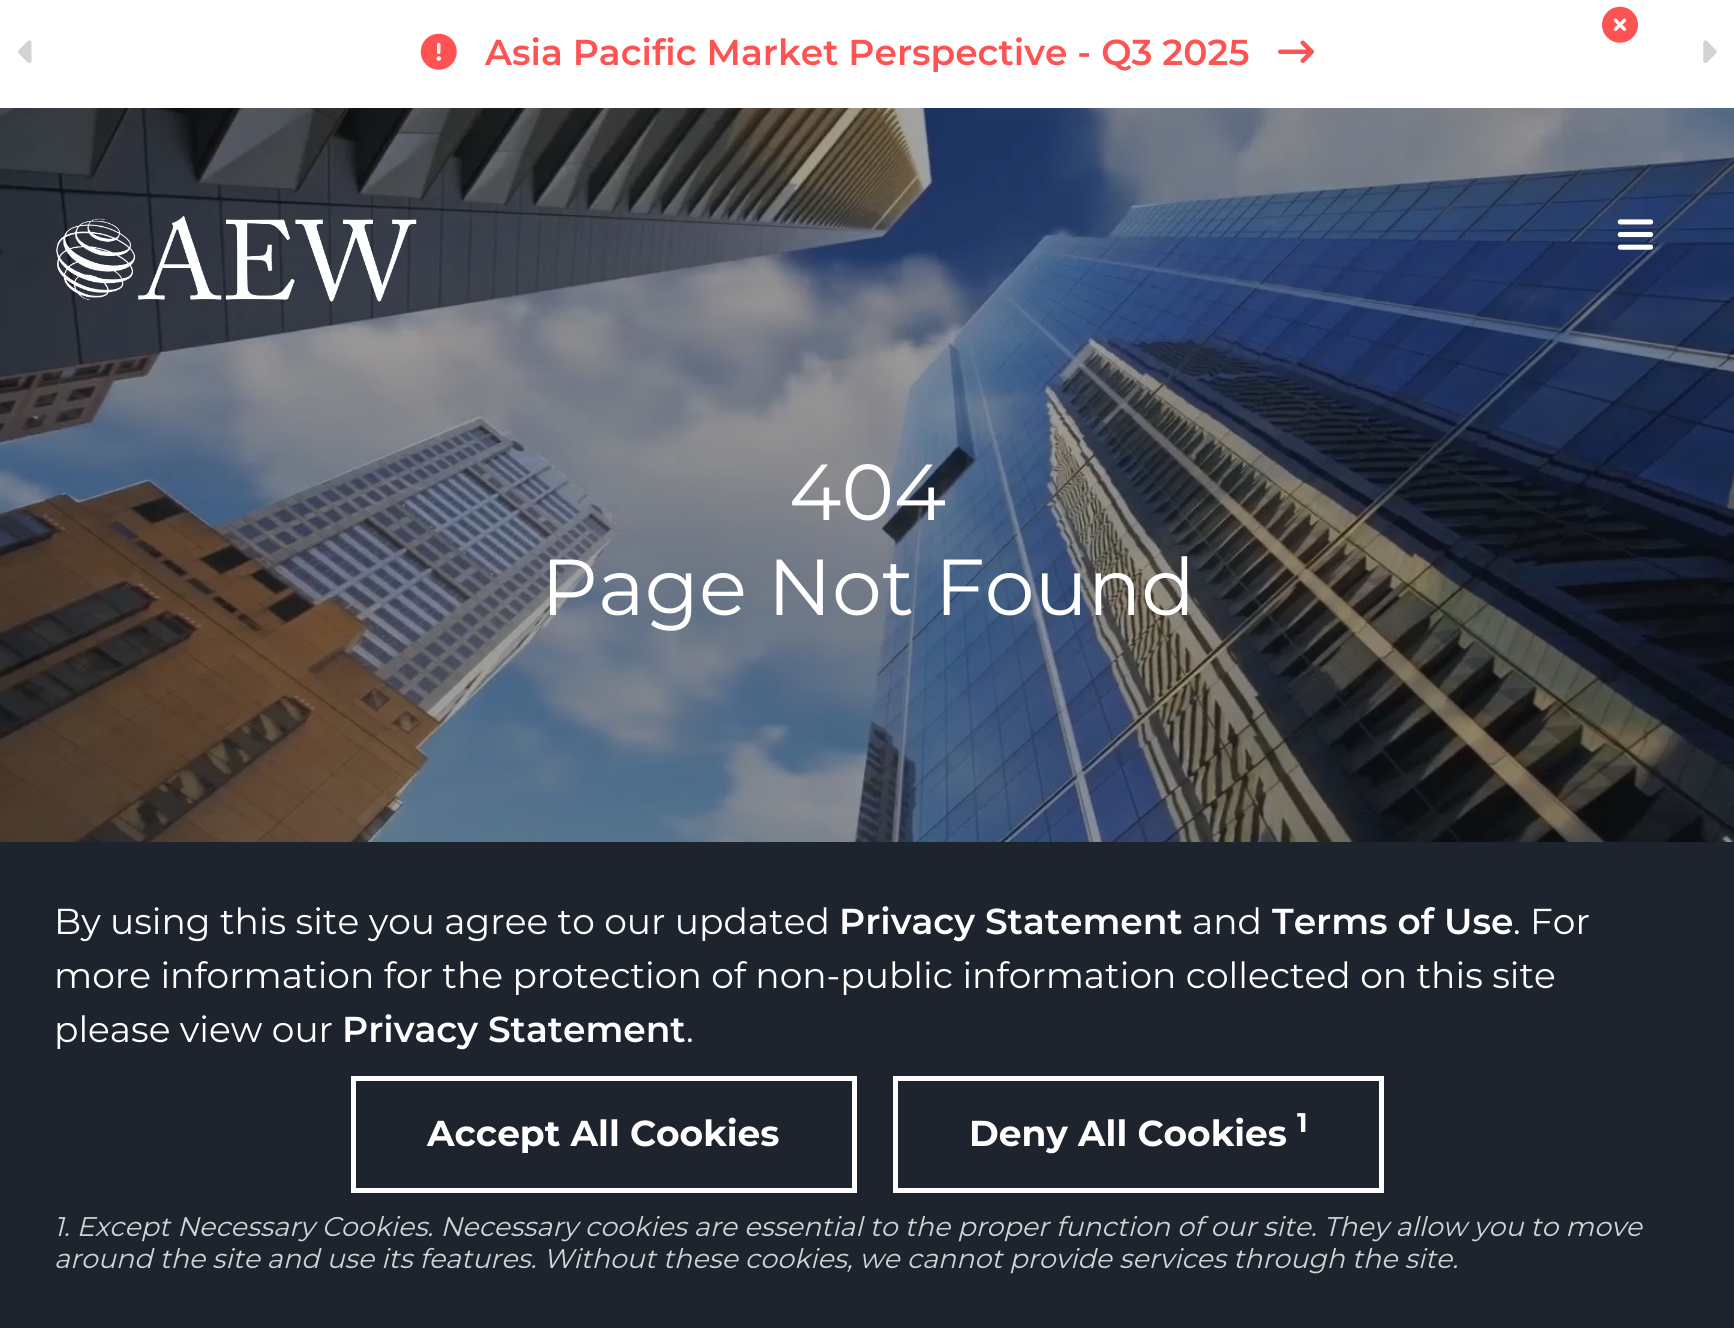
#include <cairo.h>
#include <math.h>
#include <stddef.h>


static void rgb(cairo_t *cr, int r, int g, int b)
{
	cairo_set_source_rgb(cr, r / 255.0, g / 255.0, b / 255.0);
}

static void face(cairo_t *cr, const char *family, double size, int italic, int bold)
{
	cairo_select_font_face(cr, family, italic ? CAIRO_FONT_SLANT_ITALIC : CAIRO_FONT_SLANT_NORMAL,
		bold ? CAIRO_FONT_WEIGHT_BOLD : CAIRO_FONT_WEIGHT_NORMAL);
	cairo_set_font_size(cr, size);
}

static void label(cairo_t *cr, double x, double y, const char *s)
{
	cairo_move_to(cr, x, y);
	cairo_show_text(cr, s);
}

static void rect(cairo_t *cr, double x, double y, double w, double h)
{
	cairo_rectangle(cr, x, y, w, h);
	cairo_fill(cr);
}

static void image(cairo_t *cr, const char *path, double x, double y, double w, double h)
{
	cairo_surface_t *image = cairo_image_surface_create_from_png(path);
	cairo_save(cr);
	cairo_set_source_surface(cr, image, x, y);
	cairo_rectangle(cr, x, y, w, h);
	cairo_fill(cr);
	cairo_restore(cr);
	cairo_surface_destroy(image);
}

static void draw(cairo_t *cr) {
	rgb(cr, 255, 255, 255);
	cairo_paint(cr);
	image(cr, "image0.png", 0, 108, 1734, 734);
	image(cr, "image1.png", 1602, 6, 36, 37);
	image(cr, "image2.png", 18, 40, 14, 23);
	image(cr, "image3.png", 420, 33, 37, 37);
	face(cr, "Montserrat SemiBold", 36, 0, 0);
	rgb(cr, 255, 82, 82);
	label(cr, 485, 65, "Asia Pacific Market Perspective - Q3 2025");
	image(cr, "image4.png", 1278, 40, 36, 23);
	image(cr, "image5.png", 1703, 40, 14, 23);
	image(cr, "image6.png", 56, 216, 361, 86);
	image(cr, "image7.png", 1617, 219, 37, 31);
	face(cr, "Montserrat", 79.25, 0, 0);
	rgb(cr, 255, 255, 255);
	label(cr, 789, 520, "404");
	label(cr, 541, 615, "Page Not Found");
	rgb(cr, 30, 36, 46);
	rect(cr, 0, 842, 1734, 486);
	face(cr, "Montserrat", 36, 0, 0);
	rgb(cr, 255, 255, 255);
	label(cr, 54, 934, "By using this site you agree to our updated");
	face(cr, "Montserrat SemiBold", 36, 0, 0);
	label(cr, 839, 934, "Privacy Statement");
	face(cr, "Montserrat", 36, 0, 0);
	label(cr, 1192, 934, "and");
	face(cr, "Montserrat SemiBold", 36, 0, 0);
	label(cr, 1272, 934, "Terms of Use");
	face(cr, "Montserrat", 36, 0, 0);
	label(cr, 1513, 934, ". For");
	label(cr, 54, 988, "more information for the protection of non-public information collected on this site");
	label(cr, 54, 1042, "please view our");
	face(cr, "Montserrat SemiBold", 36, 0, 0);
	label(cr, 342, 1042, "Privacy Statement");
	face(cr, "Montserrat", 36, 0, 0);
	label(cr, 686, 1042, ".");
	cairo_rectangle(cr, 353.5, 1078.5, 501, 112);
	cairo_set_line_width(cr, 5);
	cairo_stroke(cr);
	face(cr, "Montserrat", 36, 0, 1);
	label(cr, 427, 1146, "Accept All Cookies");
	cairo_rectangle(cr, 895.5, 1078.5, 486, 112);
	cairo_stroke(cr);
	label(cr, 969, 1146, "Deny All Cookies");
	face(cr, "Montserrat", 27, 0, 1);
	label(cr, 1297, 1132, "1");
	face(cr, "Montserrat", 27, 1, 0);
	rgb(cr, 210, 211, 213);
	label(cr, 54, 1236, "1. Except Necessary Cookies. Necessary cookies are essential to the proper function of our site. They allow you to move");
	label(cr, 54, 1268, "around the site and use its features. Without these cookies, we cannot provide services through the site.");
}

int main(void) {
	cairo_surface_t *surface = cairo_image_surface_create(CAIRO_FORMAT_RGB24, 1734, 1328);
	cairo_t *cr = cairo_create(surface);
	cairo_font_options_t *options = cairo_font_options_create();
	cairo_font_options_set_hint_metrics(options, CAIRO_HINT_METRICS_OFF);
	cairo_font_options_set_hint_style(options, CAIRO_HINT_STYLE_NONE);
	cairo_set_font_options(cr, options);
	cairo_set_miter_limit(cr, 4);
	draw(cr);
	cairo_surface_write_to_png(surface, "render.png");
	cairo_font_options_destroy(options);
	cairo_destroy(cr);
	cairo_surface_destroy(surface);
	return 0;
}
